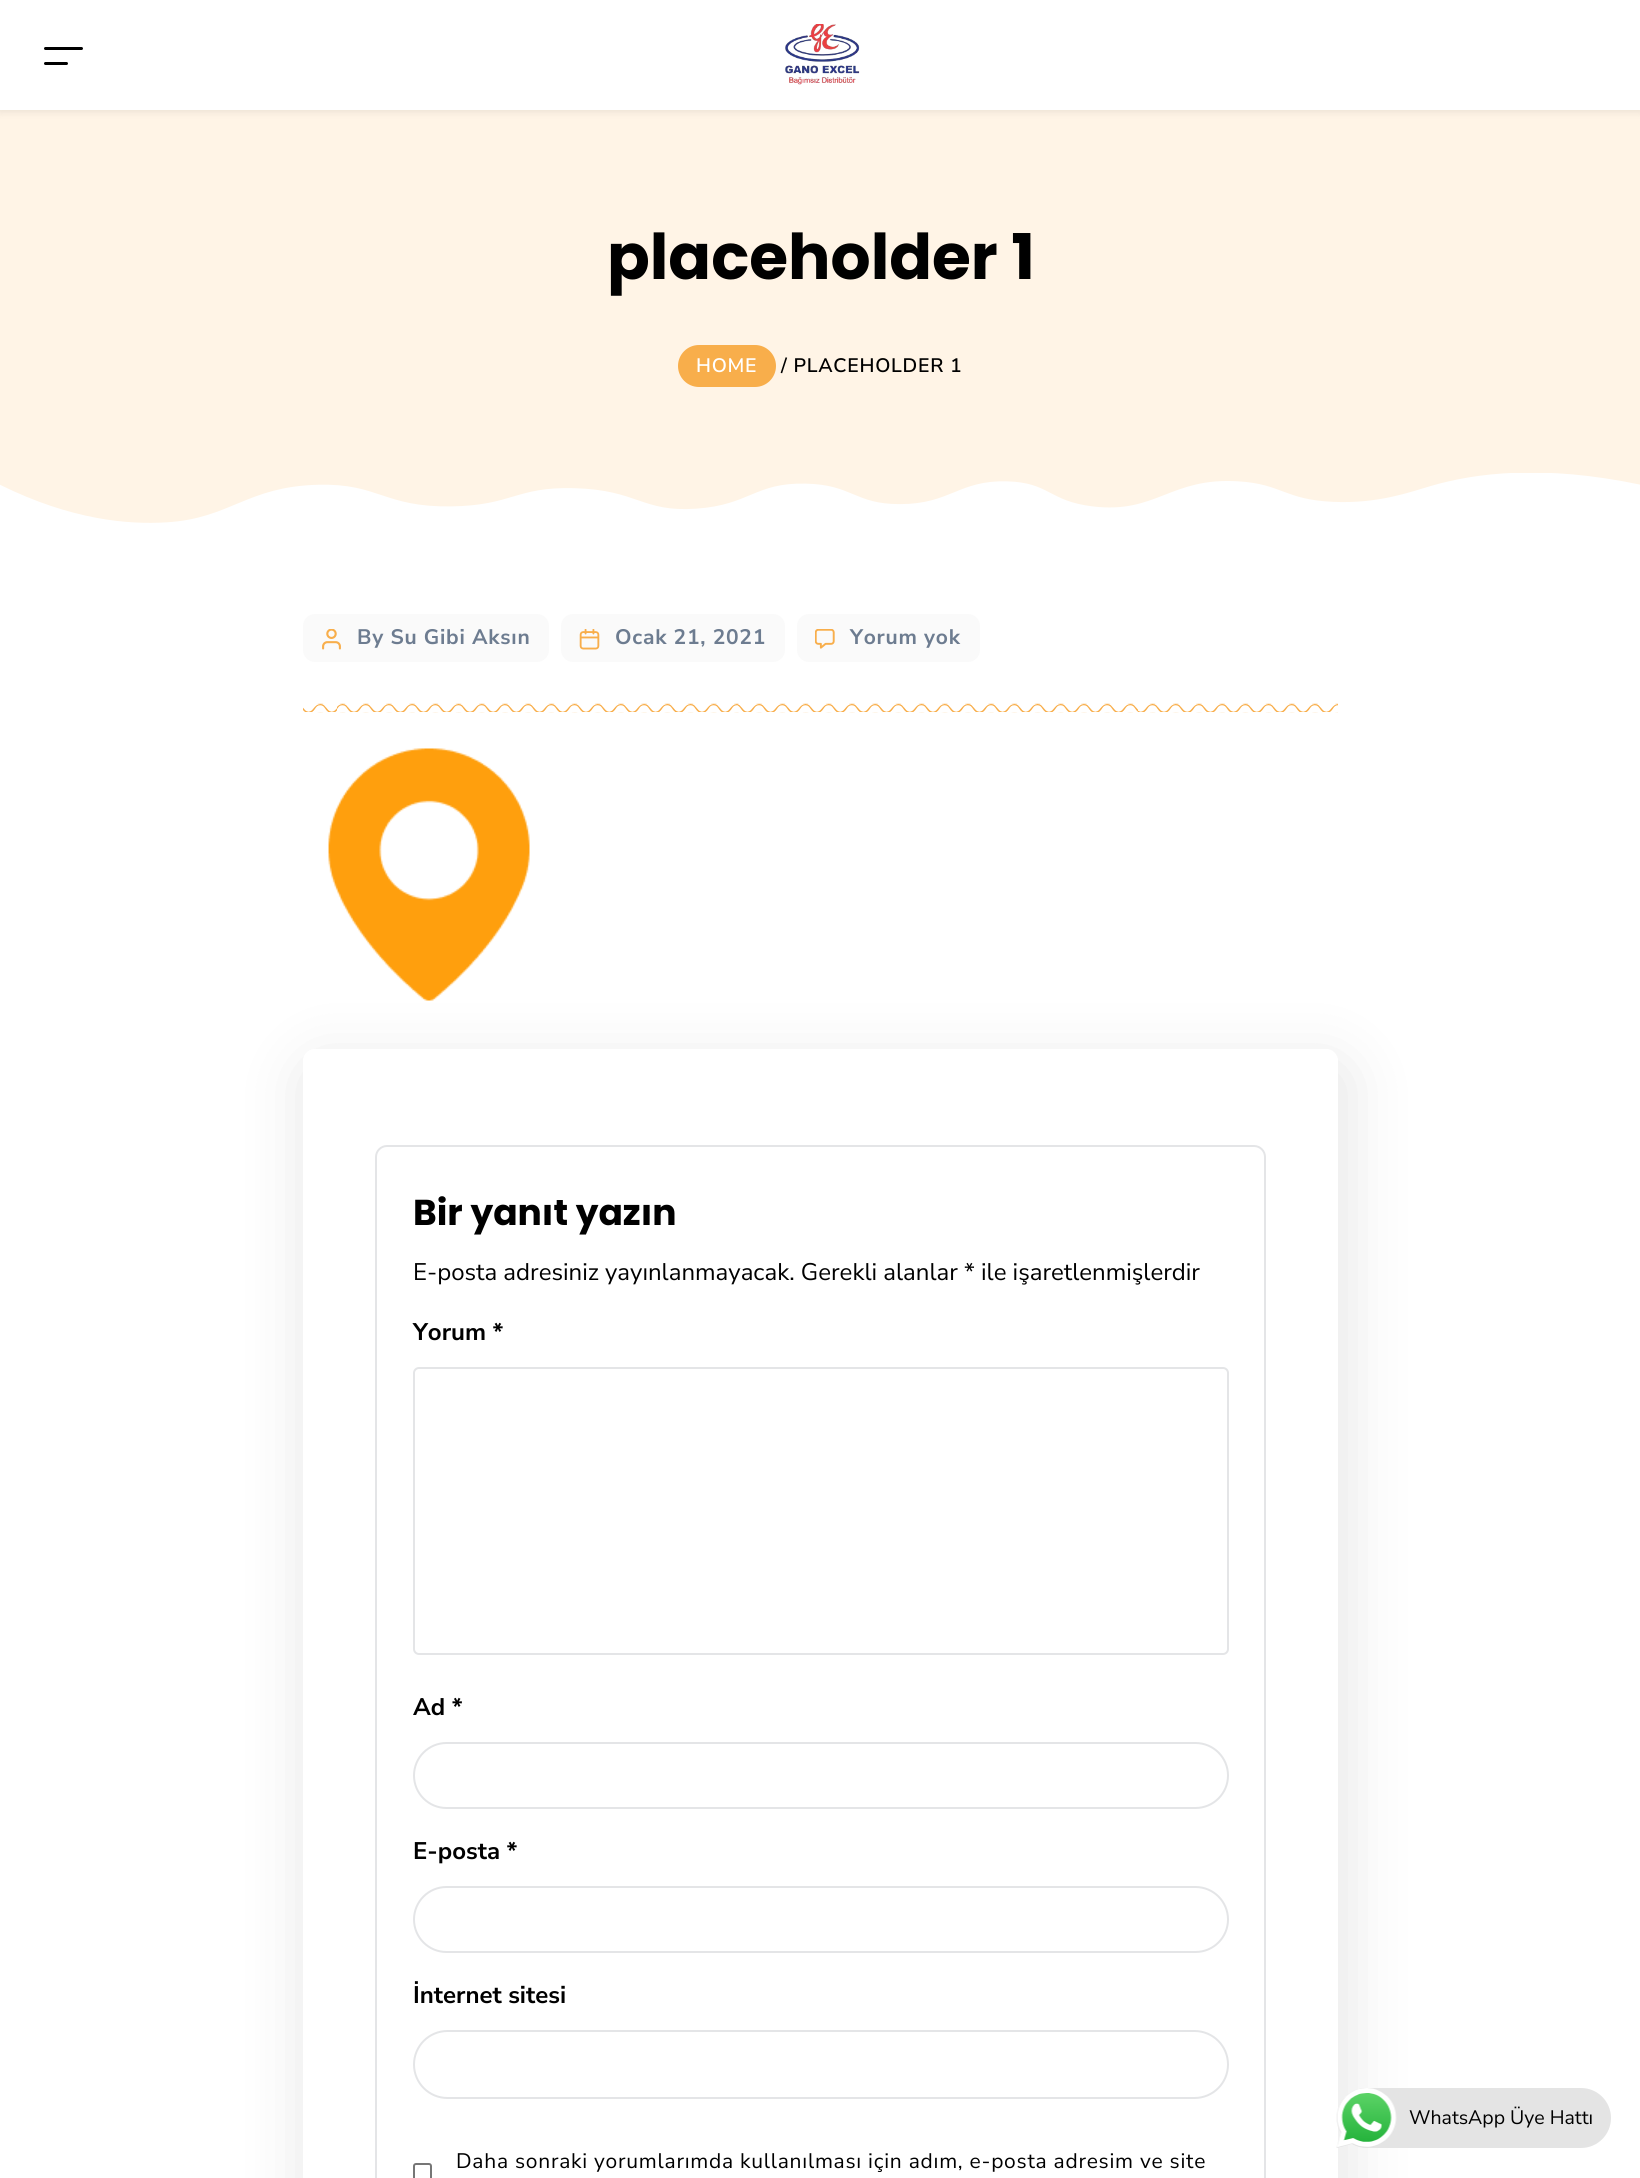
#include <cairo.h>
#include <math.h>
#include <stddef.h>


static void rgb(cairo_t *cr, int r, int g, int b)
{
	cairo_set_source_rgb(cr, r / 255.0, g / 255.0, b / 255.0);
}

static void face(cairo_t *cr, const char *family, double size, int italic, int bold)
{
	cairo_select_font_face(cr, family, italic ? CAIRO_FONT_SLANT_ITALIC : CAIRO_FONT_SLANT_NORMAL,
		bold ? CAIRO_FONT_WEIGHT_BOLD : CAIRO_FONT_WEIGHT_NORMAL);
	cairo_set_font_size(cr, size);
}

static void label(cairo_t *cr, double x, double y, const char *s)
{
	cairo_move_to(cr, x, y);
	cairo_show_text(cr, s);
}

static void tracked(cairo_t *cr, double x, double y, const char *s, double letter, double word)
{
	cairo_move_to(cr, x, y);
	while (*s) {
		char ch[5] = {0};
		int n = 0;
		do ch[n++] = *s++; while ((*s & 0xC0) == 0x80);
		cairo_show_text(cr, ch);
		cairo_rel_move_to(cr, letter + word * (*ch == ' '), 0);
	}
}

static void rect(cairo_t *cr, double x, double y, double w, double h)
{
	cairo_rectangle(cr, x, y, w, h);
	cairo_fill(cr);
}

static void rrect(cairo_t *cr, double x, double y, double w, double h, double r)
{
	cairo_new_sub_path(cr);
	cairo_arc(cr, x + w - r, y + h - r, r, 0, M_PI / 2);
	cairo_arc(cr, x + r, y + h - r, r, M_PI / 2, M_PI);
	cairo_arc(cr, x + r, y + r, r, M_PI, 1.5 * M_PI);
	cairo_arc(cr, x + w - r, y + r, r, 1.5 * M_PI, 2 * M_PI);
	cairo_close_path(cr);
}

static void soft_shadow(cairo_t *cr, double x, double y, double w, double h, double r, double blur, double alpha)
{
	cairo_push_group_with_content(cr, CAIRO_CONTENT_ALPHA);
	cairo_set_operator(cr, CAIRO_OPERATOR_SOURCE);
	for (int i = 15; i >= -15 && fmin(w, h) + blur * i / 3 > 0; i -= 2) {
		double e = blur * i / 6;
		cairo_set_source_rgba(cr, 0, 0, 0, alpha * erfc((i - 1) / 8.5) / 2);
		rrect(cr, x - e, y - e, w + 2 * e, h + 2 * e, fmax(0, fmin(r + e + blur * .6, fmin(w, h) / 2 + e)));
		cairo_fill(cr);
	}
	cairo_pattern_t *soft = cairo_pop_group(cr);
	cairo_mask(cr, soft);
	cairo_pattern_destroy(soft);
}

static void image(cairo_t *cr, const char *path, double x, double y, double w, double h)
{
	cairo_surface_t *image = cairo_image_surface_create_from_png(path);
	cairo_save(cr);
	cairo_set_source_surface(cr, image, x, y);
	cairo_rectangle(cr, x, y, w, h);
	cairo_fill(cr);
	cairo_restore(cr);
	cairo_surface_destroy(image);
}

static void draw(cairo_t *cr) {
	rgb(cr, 255, 255, 255);
	cairo_paint(cr);
	rgb(cr, 255, 244, 230);
	rect(cr, 0, 110, 1640, 413);
	cairo_save(cr);
	cairo_set_fill_rule(cr, CAIRO_FILL_RULE_EVEN_ODD);
	cairo_new_path(cr);
	cairo_move_to(cr, 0, 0);
	cairo_line_to(cr, 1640, 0);
	cairo_line_to(cr, 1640, 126);
	cairo_line_to(cr, 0, 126);
	cairo_close_path(cr);
	cairo_move_to(cr, 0, 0);
	cairo_line_to(cr, 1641, 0);
	cairo_line_to(cr, 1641, 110);
	cairo_line_to(cr, 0, 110);
	cairo_close_path(cr);
	cairo_clip(cr);
	rgb(cr, 0, 0, 0);
	soft_shadow(cr, 0, 2, 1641, 109, 0, 4.5, 0.1);
	cairo_restore(cr);
	rgb(cr, 0, 0, 0);
	rrect(cr, 44, 47, 39, 3, 1.5);
	cairo_fill(cr);
	rrect(cr, 44, 62, 24, 3, 1.5);
	cairo_fill(cr);
	image(cr, "image0.png", 785, 24, 75, 61);
	face(cr, "Poppins", 63, 0, 1);
	label(cr, 607, 279, "placeholder 1");
	rgb(cr, 248, 174, 75);
	rrect(cr, 678, 345, 98, 42, 21);
	cairo_fill(cr);
	face(cr, "Nunito Sans SemiBold", 19.5, 0, 0);
	rgb(cr, 255, 255, 255);
	tracked(cr, 696, 372, "HOME", 0.75, 0);
	rgb(cr, 0, 0, 0);
	tracked(cr, 781, 372, "/ PLACEHOLDER 1", 0.75, 0);
	image(cr, "image1.png", 0, 473, 1640, 141);
	rgb(cr, 250, 250, 250);
	rrect(cr, 303, 614, 246, 48, 12);
	cairo_fill(cr);
	image(cr, "image2.png", 322, 629, 19, 21);
	face(cr, "Nunito Sans", 21, 0, 1);
	rgb(cr, 109, 124, 144);
	tracked(cr, 357, 644, "By Su Gibi Aksın", 0.75, 0);
	rgb(cr, 250, 250, 250);
	rrect(cr, 561, 614, 224, 48, 12);
	cairo_fill(cr);
	image(cr, "image3.png", 579, 629, 21, 21);
	rgb(cr, 109, 124, 144);
	tracked(cr, 615, 644, "Ocak 21, 2021", 0.75, 0);
	rgb(cr, 250, 250, 250);
	rrect(cr, 797, 614, 183, 48, 12);
	cairo_fill(cr);
	image(cr, "image4.png", 815, 629, 20, 20);
	rgb(cr, 109, 124, 144);
	tracked(cr, 850, 644, "Yorum yok", 0.75, 0);
	image(cr, "image5.png", 303, 703, 1035, 10);
	image(cr, "image6.png", 328, 748, 202, 253);
	cairo_save(cr);
	cairo_set_fill_rule(cr, CAIRO_FILL_RULE_EVEN_ODD);
	cairo_new_path(cr);
	cairo_move_to(cr, 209, 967);
	cairo_line_to(cr, 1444, 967);
	cairo_line_to(cr, 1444, 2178);
	cairo_line_to(cr, 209, 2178);
	cairo_close_path(cr);
	cairo_move_to(cr, 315, 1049);
	cairo_line_to(cr, 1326, 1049);
	cairo_curve_to(cr, 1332.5, 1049, 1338, 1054.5, 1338, 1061);
	cairo_line_to(cr, 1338, 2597);
	cairo_curve_to(cr, 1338, 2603.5, 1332.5, 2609, 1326, 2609);
	cairo_line_to(cr, 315, 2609);
	cairo_curve_to(cr, 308.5, 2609, 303, 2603.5, 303, 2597);
	cairo_line_to(cr, 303, 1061);
	cairo_curve_to(cr, 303, 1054.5, 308.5, 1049, 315, 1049);
	cairo_close_path(cr);
	cairo_clip(cr);
	rgb(cr, 0, 0, 0);
	soft_shadow(cr, 300, 1058, 1053, 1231, 21, 30, 0.09);
	cairo_restore(cr);
	rrect(cr, 376, 1146, 889, 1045, 11);
	rgb(cr, 228, 229, 231);
	cairo_stroke(cr);
	face(cr, "Poppins", 36, 0, 1);
	rgb(cr, 0, 0, 0);
	label(cr, 413, 1225, "Bir yanıt yazın");
	face(cr, "Nunito Sans", 24, 0, 0);
	label(cr, 413, 1280, "E-posta adresiniz yayınlanmayacak. Gerekli alanlar * ile işaretlenmişlerdir");
	face(cr, "Nunito Sans", 24, 0, 1);
	label(cr, 413, 1340, "Yorum *");
	rrect(cr, 414, 1368, 814, 286, 5);
	rgb(cr, 228, 229, 231);
	cairo_stroke(cr);
	rgb(cr, 0, 0, 0);
	label(cr, 413, 1715, "Ad *");
	rrect(cr, 414, 1743, 814, 65, 32.5);
	rgb(cr, 228, 229, 231);
	cairo_stroke(cr);
	rgb(cr, 0, 0, 0);
	label(cr, 413, 1859, "E-posta *");
	rrect(cr, 414, 1887, 814, 65, 32.5);
	rgb(cr, 228, 229, 231);
	cairo_stroke(cr);
	rgb(cr, 0, 0, 0);
	label(cr, 413, 2003, "İnternet sitesi");
	rrect(cr, 414, 2031, 814, 67, 33.5);
	rgb(cr, 228, 229, 231);
	cairo_stroke(cr);
	rrect(cr, 414, 2164, 17, 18, 2);
	rgb(cr, 118, 118, 118);
	cairo_stroke(cr);
	face(cr, "Nunito Sans", 21, 0, 0);
	rgb(cr, 0, 0, 0);
	tracked(cr, 456, 2168, "Daha sonraki yorumlarımda kullanılması için adım, e-posta adresim ve site", 0.75, 0);
	rgb(cr, 228, 228, 228);
	rrect(cr, 1337, 2088, 274, 60, 30);
	cairo_fill(cr);
	image(cr, "image7.png", 1336, 2088, 61, 60);
	face(cr, "Nunito Sans", 19.5, 0, 0);
	rgb(cr, 0, 0, 0);
	label(cr, 1409, 2124, "WhatsApp Üye Hattı");
}

int main(void) {
	cairo_surface_t *surface = cairo_image_surface_create(CAIRO_FORMAT_RGB24, 1640, 2178);
	cairo_t *cr = cairo_create(surface);
	cairo_font_options_t *options = cairo_font_options_create();
	cairo_font_options_set_hint_metrics(options, CAIRO_HINT_METRICS_OFF);
	cairo_font_options_set_hint_style(options, CAIRO_HINT_STYLE_NONE);
	cairo_set_font_options(cr, options);
	cairo_set_miter_limit(cr, 4);
	draw(cr);
	cairo_surface_write_to_png(surface, "render.png");
	cairo_font_options_destroy(options);
	cairo_destroy(cr);
	cairo_surface_destroy(surface);
	return 0;
}
